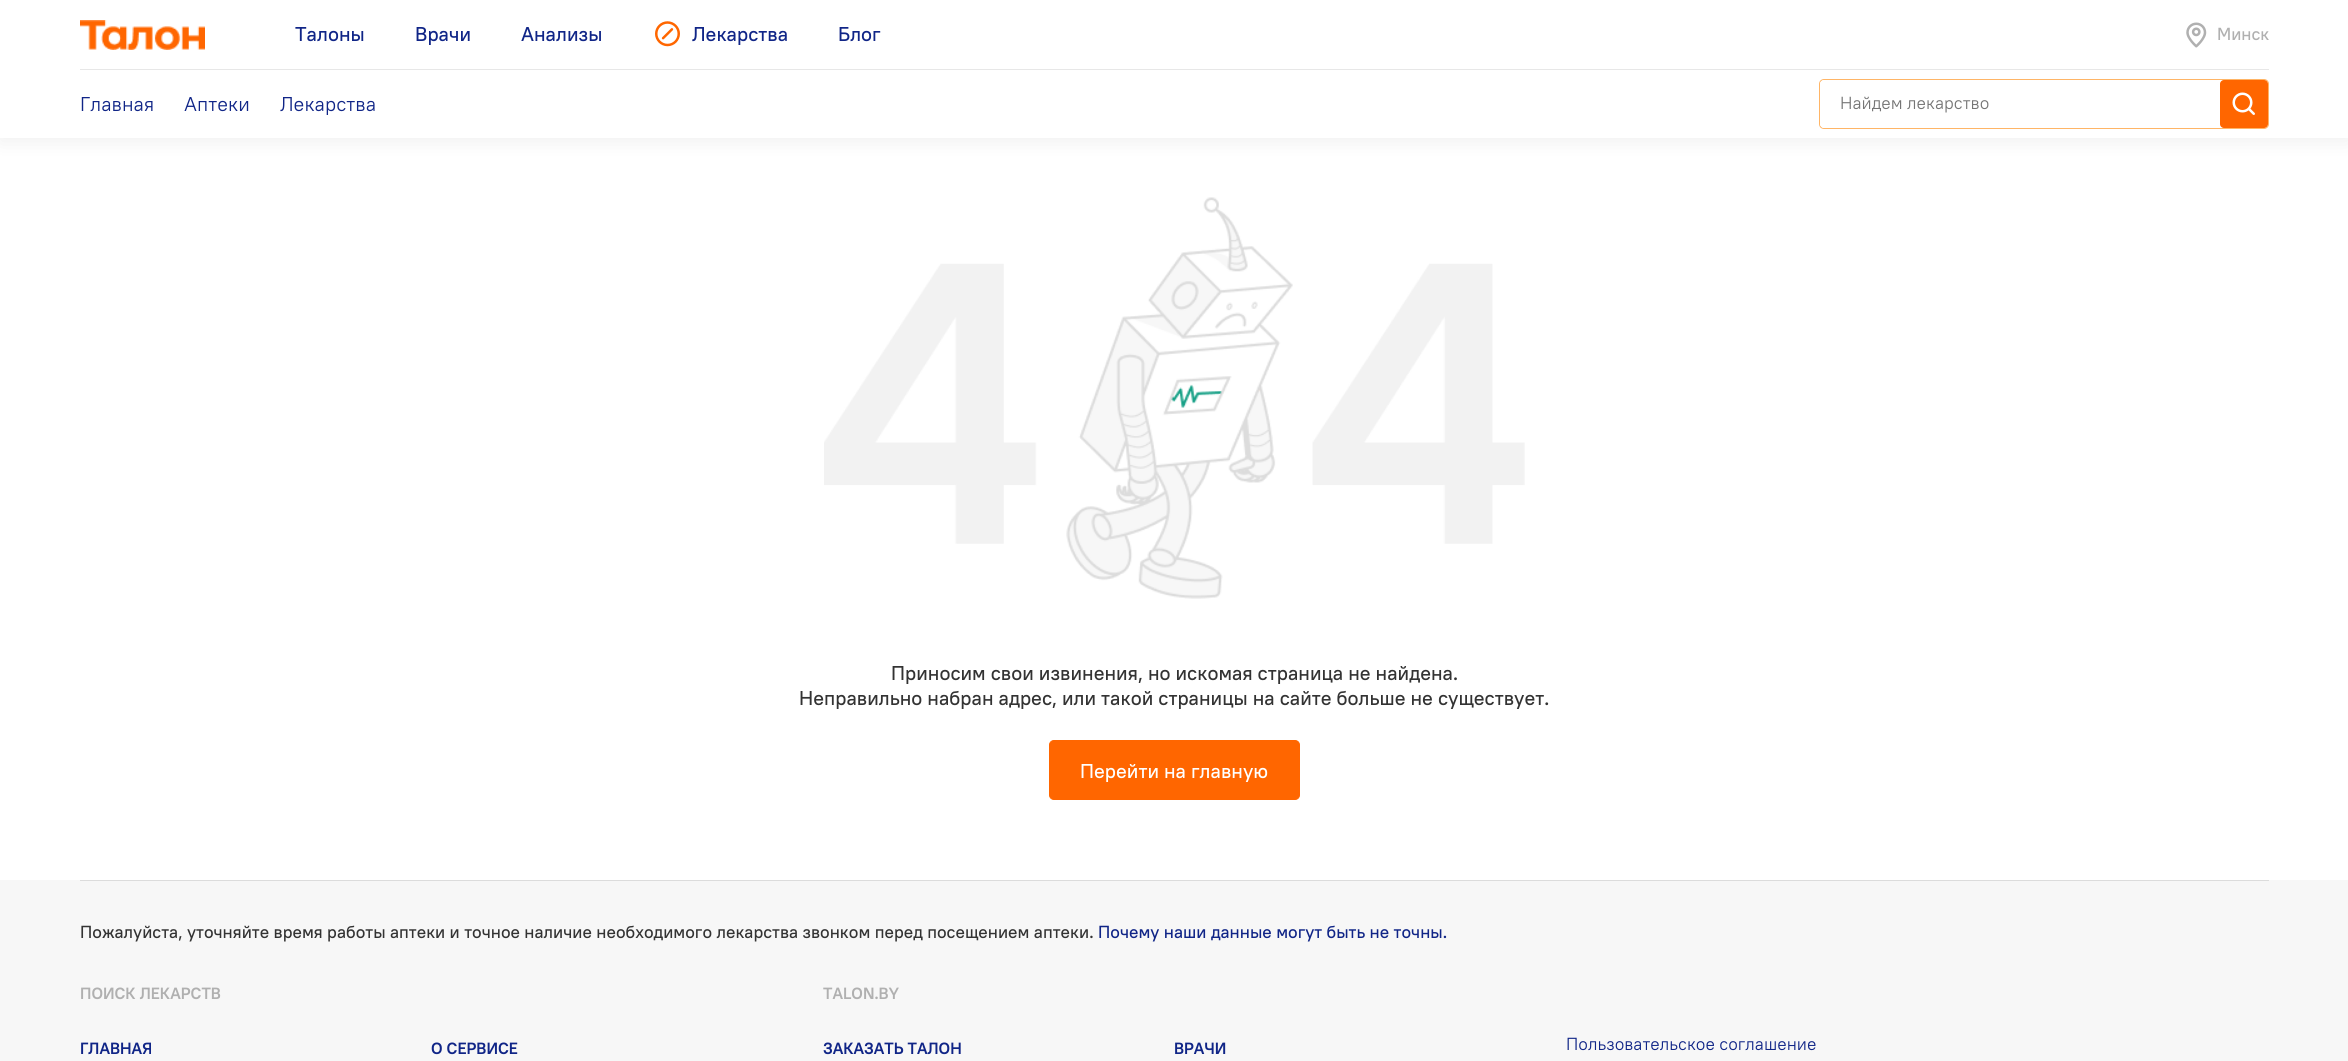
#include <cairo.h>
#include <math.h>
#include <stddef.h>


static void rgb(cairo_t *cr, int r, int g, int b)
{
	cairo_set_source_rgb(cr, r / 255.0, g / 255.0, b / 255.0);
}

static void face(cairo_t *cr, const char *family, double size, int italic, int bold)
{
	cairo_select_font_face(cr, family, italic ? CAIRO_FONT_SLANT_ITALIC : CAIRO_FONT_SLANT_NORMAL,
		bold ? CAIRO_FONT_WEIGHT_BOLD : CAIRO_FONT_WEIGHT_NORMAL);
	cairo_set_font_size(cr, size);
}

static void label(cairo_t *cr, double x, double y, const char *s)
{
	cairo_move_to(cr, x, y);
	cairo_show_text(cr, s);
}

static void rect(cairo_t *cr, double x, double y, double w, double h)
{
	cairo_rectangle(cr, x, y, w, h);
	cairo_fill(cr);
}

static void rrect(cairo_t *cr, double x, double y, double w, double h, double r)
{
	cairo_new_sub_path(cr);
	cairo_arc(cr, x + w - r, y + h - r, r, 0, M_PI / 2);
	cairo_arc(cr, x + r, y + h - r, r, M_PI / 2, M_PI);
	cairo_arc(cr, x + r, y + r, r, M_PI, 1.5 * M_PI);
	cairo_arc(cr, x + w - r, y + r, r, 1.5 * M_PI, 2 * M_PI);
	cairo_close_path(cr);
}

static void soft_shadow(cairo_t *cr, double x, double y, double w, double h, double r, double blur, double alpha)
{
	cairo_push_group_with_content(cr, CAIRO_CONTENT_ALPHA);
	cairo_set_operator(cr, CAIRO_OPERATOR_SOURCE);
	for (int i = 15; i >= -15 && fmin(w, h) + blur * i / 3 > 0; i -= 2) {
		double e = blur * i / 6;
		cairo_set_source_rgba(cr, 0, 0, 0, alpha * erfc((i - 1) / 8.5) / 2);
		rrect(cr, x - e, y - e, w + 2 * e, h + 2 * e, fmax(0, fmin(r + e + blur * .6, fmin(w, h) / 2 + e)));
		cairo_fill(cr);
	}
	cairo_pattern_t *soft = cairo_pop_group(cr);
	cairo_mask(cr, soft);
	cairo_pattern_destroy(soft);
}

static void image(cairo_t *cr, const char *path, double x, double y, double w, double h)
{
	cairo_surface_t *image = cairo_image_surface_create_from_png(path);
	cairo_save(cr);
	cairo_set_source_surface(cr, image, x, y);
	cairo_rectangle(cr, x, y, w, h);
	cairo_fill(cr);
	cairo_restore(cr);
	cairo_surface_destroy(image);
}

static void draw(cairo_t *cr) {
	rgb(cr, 255, 255, 255);
	cairo_paint(cr);
	rgb(cr, 51, 51, 51);
	soft_shadow(cr, 0, 4, 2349, 137, 0, 10, 0.08);
	rgb(cr, 255, 255, 255);
	rect(cr, 0, 0, 2348, 138);
	image(cr, "image0.png", 80, 20, 125, 30);
	face(cr, "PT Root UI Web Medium", 20, 0, 0);
	rgb(cr, 16, 37, 135);
	label(cr, 295, 41, "Талоны");
	label(cr, 415, 41, "Врачи");
	label(cr, 521, 41, "Анализы");
	image(cr, "image1.png", 655, 21, 25, 26);
	label(cr, 692, 41, "Лекарства");
	label(cr, 838, 41, "Блог");
	image(cr, "image2.png", 2186, 22, 21, 26);
	face(cr, "PT Root UI Web Medium", 17.5, 0, 0);
	rgb(cr, 176, 176, 176);
	label(cr, 2217, 40, "Минск");
	rgb(cr, 231, 231, 231);
	rect(cr, 80, 69, 2189, 1);
	face(cr, "PT Root UI Web", 20, 0, 0);
	rgb(cr, 16, 37, 135);
	label(cr, 80, 111, "Главная");
	label(cr, 184, 111, "Аптеки");
	label(cr, 280, 111, "Лекарства");
	rrect(cr, 1819.5, 79.5, 449, 49, 4.5);
	rgb(cr, 255, 181, 102);
	cairo_set_line_width(cr, 1);
	cairo_stroke(cr);
	rgb(cr, 255, 255, 255);
	cairo_new_path(cr);
	cairo_move_to(cr, 1824, 80);
	cairo_line_to(cr, 2173, 80);
	cairo_line_to(cr, 2173, 128);
	cairo_line_to(cr, 1824, 128);
	cairo_curve_to(cr, 1822, 128, 1820, 126, 1820, 124);
	cairo_line_to(cr, 1820, 84);
	cairo_curve_to(cr, 1820, 82, 1822, 80, 1824, 80);
	cairo_close_path(cr);
	cairo_fill(cr);
	face(cr, "PT Root UI Web", 17.5, 0, 0);
	rgb(cr, 117, 117, 117);
	label(cr, 1840, 109, "Найдем лекарство");
	rgb(cr, 255, 102, 0);
	rrect(cr, 2220, 80, 48, 48, 4);
	cairo_fill(cr);
	image(cr, "image3.png", 2232, 92, 23, 23);
	image(cr, "image4.png", 824, 197, 701, 402);
	face(cr, "PT Root UI Web Medium", 20, 0, 0);
	rgb(cr, 51, 51, 51);
	label(cr, 891, 680, "Приносим свои извинения, но искомая страница не найдена.");
	label(cr, 799, 705, "Неправильно набран адрес, или такой страницы на сайте больше не существует.");
	rgb(cr, 255, 102, 0);
	rrect(cr, 1049.5, 740.5, 250, 59, 4.5);
	cairo_fill_preserve(cr);
	cairo_stroke(cr);
	rgb(cr, 255, 255, 255);
	label(cr, 1080, 778, "Перейти на главную");
	rgb(cr, 247, 247, 247);
	rect(cr, 0, 880, 2348, 181);
	rgb(cr, 220, 220, 220);
	rect(cr, 80, 880, 2189, 1);
	face(cr, "PT Root UI Web Medium", 17.5, 0, 0);
	rgb(cr, 51, 51, 51);
	label(cr, 80, 938, "Пожалуйста, уточняйте время работы аптеки и точное наличие необходимого лекарства звонком перед посещением аптеки.");
	rgb(cr, 16, 37, 135);
	label(cr, 1098, 938, "Почему наши данные могут быть не точны.");
	face(cr, "PT Root UI Web", 16.25, 0, 1);
	rgb(cr, 176, 176, 176);
	label(cr, 80, 999, "ПОИСК ЛЕКАРСТВ");
	rgb(cr, 16, 37, 135);
	label(cr, 80, 1054, "ГЛАВНАЯ");
	label(cr, 431, 1054, "О СЕРВИСЕ");
	rgb(cr, 176, 176, 176);
	label(cr, 823, 999, "TALON.BY");
	rgb(cr, 16, 37, 135);
	label(cr, 823, 1054, "ЗАКАЗАТЬ ТАЛОН");
	label(cr, 1174, 1054, "ВРАЧИ");
	face(cr, "PT Root UI Web", 17.5, 0, 0);
	label(cr, 1566, 1050, "Пользовательское соглашение");
}

int main(void) {
	cairo_surface_t *surface = cairo_image_surface_create(CAIRO_FORMAT_RGB24, 2348, 1061);
	cairo_t *cr = cairo_create(surface);
	cairo_font_options_t *options = cairo_font_options_create();
	cairo_font_options_set_hint_metrics(options, CAIRO_HINT_METRICS_OFF);
	cairo_font_options_set_hint_style(options, CAIRO_HINT_STYLE_NONE);
	cairo_set_font_options(cr, options);
	cairo_set_miter_limit(cr, 4);
	draw(cr);
	cairo_surface_write_to_png(surface, "render.png");
	cairo_font_options_destroy(options);
	cairo_destroy(cr);
	cairo_surface_destroy(surface);
	return 0;
}
